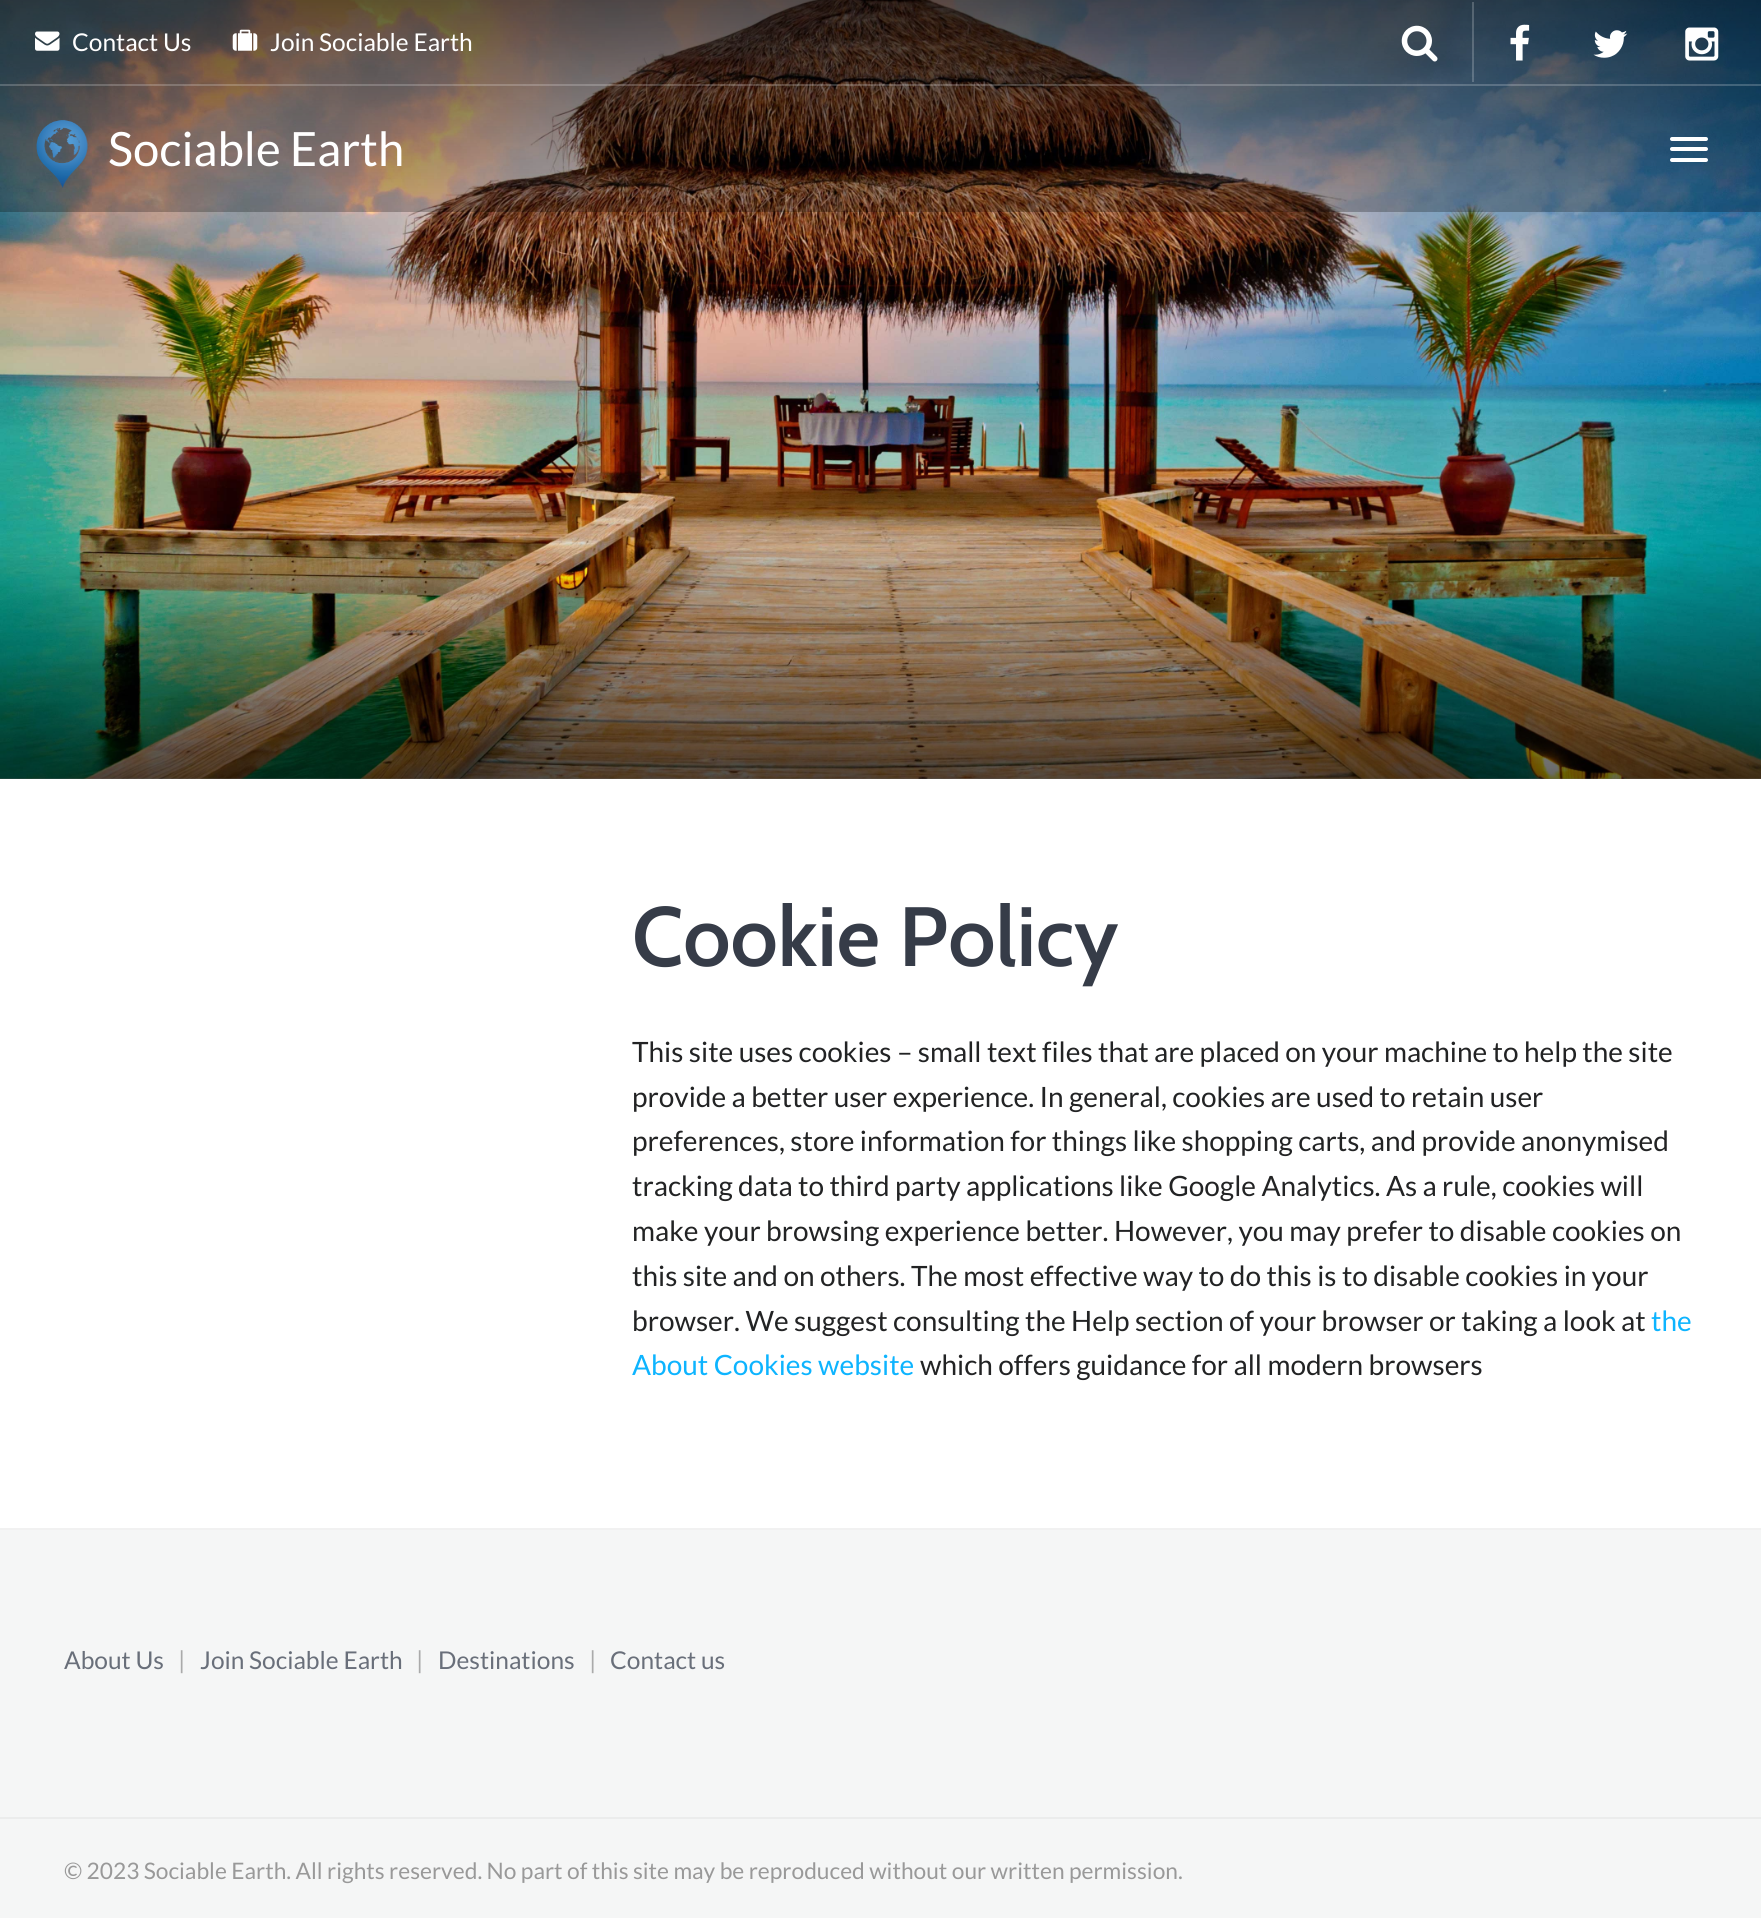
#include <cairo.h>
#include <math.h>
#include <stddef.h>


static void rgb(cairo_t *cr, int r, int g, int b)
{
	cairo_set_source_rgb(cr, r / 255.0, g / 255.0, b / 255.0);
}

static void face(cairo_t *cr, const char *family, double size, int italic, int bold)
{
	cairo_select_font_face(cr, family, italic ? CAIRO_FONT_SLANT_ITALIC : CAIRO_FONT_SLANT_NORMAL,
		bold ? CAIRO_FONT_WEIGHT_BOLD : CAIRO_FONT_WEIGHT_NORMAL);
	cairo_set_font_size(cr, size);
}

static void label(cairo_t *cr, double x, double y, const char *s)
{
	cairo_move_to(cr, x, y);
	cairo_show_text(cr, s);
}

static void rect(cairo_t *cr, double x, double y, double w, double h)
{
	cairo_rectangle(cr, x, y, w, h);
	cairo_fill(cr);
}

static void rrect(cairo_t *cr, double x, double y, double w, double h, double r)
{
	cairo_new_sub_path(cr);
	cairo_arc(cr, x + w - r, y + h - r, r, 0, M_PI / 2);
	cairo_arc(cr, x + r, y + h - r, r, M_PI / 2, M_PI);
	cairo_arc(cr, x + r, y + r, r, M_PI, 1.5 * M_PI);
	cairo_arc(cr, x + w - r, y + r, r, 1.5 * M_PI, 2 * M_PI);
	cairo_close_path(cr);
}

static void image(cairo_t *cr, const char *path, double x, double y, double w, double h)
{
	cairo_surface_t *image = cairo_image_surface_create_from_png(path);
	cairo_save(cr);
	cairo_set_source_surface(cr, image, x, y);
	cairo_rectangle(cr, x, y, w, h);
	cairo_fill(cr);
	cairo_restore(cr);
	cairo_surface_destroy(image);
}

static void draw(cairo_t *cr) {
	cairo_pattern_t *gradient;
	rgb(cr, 255, 255, 255);
	cairo_paint(cr);
	image(cr, "image0.png", 0, 0, 1761, 779);
	gradient = cairo_pattern_create_linear(881, 0, 881, 779);
	cairo_pattern_add_color_stop_rgba(gradient, 0, 0, 0, 0, 0.5);
	cairo_pattern_add_color_stop_rgba(gradient, 0.25, 0, 0, 0, 0);
	cairo_pattern_add_color_stop_rgba(gradient, 0.7, 0, 0, 0, 0);
	cairo_pattern_add_color_stop_rgba(gradient, 1, 0, 0, 0, 0.6);
	cairo_set_source(cr, gradient);
	cairo_pattern_destroy(gradient);
	rect(cr, 0, 0, 1761, 779);
	cairo_set_source_rgba(cr, 0, 0, 0, 0.26);
	rect(cr, 0, 0, 1761, 212);
	cairo_set_source_rgba(cr, 1, 1, 1, 0.2);
	rect(cr, 0, 84, 1761, 2);
	image(cr, "image1.png", 35, 31, 25, 20);
	face(cr, "Lato", 24.5, 0, 0);
	rgb(cr, 255, 255, 255);
	label(cr, 72, 51, "Contact Us");
	image(cr, "image2.png", 232, 29, 26, 22);
	label(cr, 270, 51, "Join Sociable Earth");
	cairo_set_source_rgba(cr, 1, 1, 1, 0.2);
	rect(cr, 1472, 2, 2, 80);
	image(cr, "image3.png", 1401, 25, 37, 37);
	image(cr, "image4.png", 1510, 24, 20, 37);
	image(cr, "image5.png", 1593, 30, 35, 28);
	image(cr, "image6.png", 1685, 27, 34, 34);
	image(cr, "image7.png", 36, 120, 52, 68);
	face(cr, "Lato", 47.25, 0, 0);
	rgb(cr, 255, 255, 255);
	label(cr, 108, 166, "Sociable Earth");
	rrect(cr, 1670, 137, 38, 4, 2);
	cairo_fill(cr);
	rrect(cr, 1670, 147, 38, 4, 2);
	cairo_fill(cr);
	rrect(cr, 1670, 158, 38, 4, 2);
	cairo_fill(cr);
	face(cr, "Cabin SemiBold", 84, 0, 0);
	rgb(cr, 54, 60, 72);
	label(cr, 632, 966, "Cookie Policy");
	face(cr, "Lato", 28, 0, 0);
	rgb(cr, 34, 35, 36);
	label(cr, 632, 1062, "This site uses cookies – small text files that are placed on your machine to help the site");
	label(cr, 632, 1107, "provide a better user experience. In general, cookies are used to retain user");
	label(cr, 632, 1151, "preferences, store information for things like shopping carts, and provide anonymised");
	label(cr, 632, 1196, "tracking data to third party applications like Google Analytics. As a rule, cookies will");
	label(cr, 632, 1241, "make your browsing experience better. However, you may prefer to disable cookies on");
	label(cr, 632, 1286, "this site and on others. The most effective way to do this is to disable cookies in your");
	label(cr, 632, 1331, "browser. We suggest consulting the Help section of your browser or taking a look at");
	rgb(cr, 13, 180, 255);
	label(cr, 1651, 1331, "the");
	label(cr, 632, 1375, "About Cookies website");
	rgb(cr, 34, 35, 36);
	label(cr, 920, 1375, "which offers guidance for all modern browsers");
	rgb(cr, 241, 241, 241);
	rect(cr, 0, 1528, 1761, 2);
	rgb(cr, 245, 246, 246);
	rect(cr, 0, 1530, 1761, 287);
	face(cr, "Lato", 24.5, 0, 0);
	rgb(cr, 105, 111, 122);
	label(cr, 64, 1669, "About Us");
	rgb(cr, 170, 170, 170);
	label(cr, 178, 1669, "|");
	rgb(cr, 105, 111, 122);
	label(cr, 200, 1669, "Join Sociable Earth");
	rgb(cr, 170, 170, 170);
	label(cr, 416, 1669, "|");
	rgb(cr, 105, 111, 122);
	label(cr, 438, 1669, "Destinations");
	rgb(cr, 170, 170, 170);
	label(cr, 589, 1669, "|");
	rgb(cr, 105, 111, 122);
	label(cr, 610, 1669, "Contact us");
	rgb(cr, 245, 246, 246);
	rect(cr, 0, 1819, 1761, 99);
	rgb(cr, 235, 236, 236);
	rect(cr, 0, 1817, 1761, 2);
	face(cr, "Lato", 22.75, 0, 0);
	rgb(cr, 153, 153, 153);
	label(cr, 64, 1879, "© 2023 Sociable Earth. All rights reserved. No part of this site may be reproduced without our written permission.");
}

int main(void) {
	cairo_surface_t *surface = cairo_image_surface_create(CAIRO_FORMAT_RGB24, 1761, 1929);
	cairo_t *cr = cairo_create(surface);
	cairo_font_options_t *options = cairo_font_options_create();
	cairo_font_options_set_hint_metrics(options, CAIRO_HINT_METRICS_OFF);
	cairo_font_options_set_hint_style(options, CAIRO_HINT_STYLE_NONE);
	cairo_set_font_options(cr, options);
	cairo_set_miter_limit(cr, 4);
	draw(cr);
	cairo_surface_write_to_png(surface, "render.png");
	cairo_font_options_destroy(options);
	cairo_destroy(cr);
	cairo_surface_destroy(surface);
	return 0;
}
